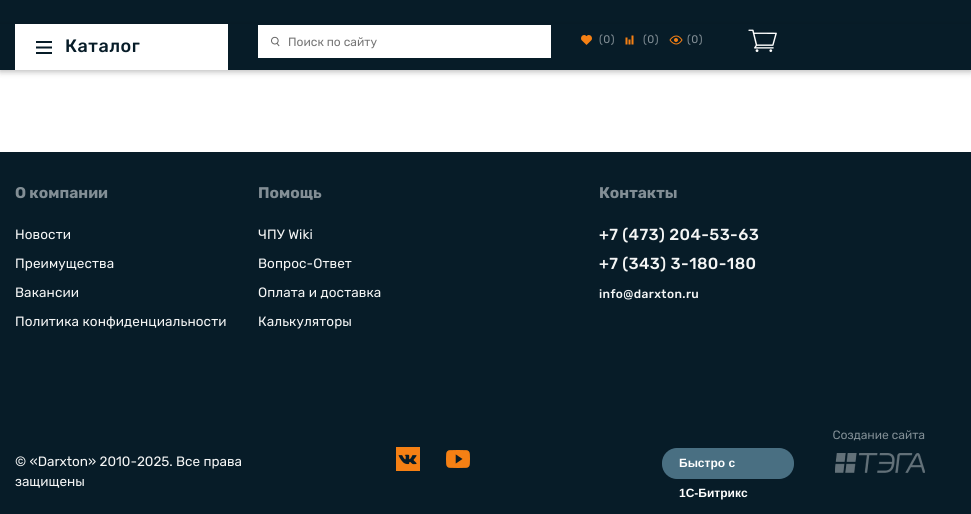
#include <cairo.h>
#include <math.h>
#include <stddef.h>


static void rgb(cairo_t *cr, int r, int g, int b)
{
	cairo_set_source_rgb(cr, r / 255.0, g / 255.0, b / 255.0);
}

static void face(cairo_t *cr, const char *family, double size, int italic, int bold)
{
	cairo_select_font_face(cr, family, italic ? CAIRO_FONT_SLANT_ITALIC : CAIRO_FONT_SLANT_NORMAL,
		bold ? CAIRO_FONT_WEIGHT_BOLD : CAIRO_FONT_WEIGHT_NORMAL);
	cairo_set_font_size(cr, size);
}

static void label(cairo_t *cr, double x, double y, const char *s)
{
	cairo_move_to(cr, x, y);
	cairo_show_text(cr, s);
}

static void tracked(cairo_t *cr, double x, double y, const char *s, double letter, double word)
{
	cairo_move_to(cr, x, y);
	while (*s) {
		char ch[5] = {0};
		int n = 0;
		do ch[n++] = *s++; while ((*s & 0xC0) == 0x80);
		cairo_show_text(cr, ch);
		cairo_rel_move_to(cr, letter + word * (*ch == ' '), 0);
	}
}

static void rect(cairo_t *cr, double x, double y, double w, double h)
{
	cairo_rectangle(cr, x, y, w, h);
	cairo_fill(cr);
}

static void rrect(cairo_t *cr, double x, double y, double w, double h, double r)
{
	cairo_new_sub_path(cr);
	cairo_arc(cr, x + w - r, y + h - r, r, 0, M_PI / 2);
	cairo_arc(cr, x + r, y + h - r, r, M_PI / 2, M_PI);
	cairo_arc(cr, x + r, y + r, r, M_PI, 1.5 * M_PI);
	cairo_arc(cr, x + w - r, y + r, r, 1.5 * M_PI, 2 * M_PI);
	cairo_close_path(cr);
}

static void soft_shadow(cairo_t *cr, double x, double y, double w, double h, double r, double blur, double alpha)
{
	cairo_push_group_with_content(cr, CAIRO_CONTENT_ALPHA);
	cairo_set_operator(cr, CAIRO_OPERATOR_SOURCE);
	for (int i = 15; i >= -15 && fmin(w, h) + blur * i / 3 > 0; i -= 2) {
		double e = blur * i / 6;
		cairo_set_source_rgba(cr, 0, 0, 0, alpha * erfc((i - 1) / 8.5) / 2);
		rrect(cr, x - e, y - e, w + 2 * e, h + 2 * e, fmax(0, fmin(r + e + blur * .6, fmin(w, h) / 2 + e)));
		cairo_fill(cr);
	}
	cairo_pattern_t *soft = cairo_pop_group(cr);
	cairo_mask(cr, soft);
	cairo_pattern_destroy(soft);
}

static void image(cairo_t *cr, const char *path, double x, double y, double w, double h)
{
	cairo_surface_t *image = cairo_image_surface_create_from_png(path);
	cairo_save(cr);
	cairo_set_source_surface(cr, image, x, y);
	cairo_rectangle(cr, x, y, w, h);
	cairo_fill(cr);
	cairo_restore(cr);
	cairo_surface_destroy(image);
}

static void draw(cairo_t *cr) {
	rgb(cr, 255, 255, 255);
	cairo_paint(cr);
	rgb(cr, 7, 28, 40);
	rect(cr, 0, 0, 971, 70);
	cairo_save(cr);
	cairo_set_fill_rule(cr, CAIRO_FILL_RULE_EVEN_ODD);
	cairo_new_path(cr);
	cairo_move_to(cr, 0, 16);
	cairo_line_to(cr, 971, 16);
	cairo_line_to(cr, 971, 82);
	cairo_line_to(cr, 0, 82);
	cairo_close_path(cr);
	cairo_move_to(cr, 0, 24);
	cairo_line_to(cr, 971, 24);
	cairo_line_to(cr, 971, 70);
	cairo_line_to(cr, 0, 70);
	cairo_close_path(cr);
	cairo_clip(cr);
	rgb(cr, 0, 0, 0);
	soft_shadow(cr, 0, 26, 971, 46, 0, 3, 0.25);
	cairo_restore(cr);
	rgb(cr, 255, 255, 255);
	rect(cr, 15, 24, 213, 46);
	rgb(cr, 7, 28, 40);
	rect(cr, 36, 41, 16, 2);
	cairo_new_path(cr);
	cairo_move_to(cr, 36, 47.5);
	cairo_line_to(cr, 52, 47.5);
	cairo_stroke(cr);
	rect(cr, 36, 52, 16, 2);
	face(cr, "Rubik Medium", 18, 0, 0);
	tracked(cr, 65, 52, "Каталог", 0.5, 0);
	rgb(cr, 255, 255, 255);
	rect(cr, 258, 25, 293, 33);
	image(cr, "image0.png", 271, 36, 9, 11);
	face(cr, "Rubik", 12, 0, 0);
	rgb(cr, 117, 117, 117);
	label(cr, 288, 46, "Поиск по сайту");
	image(cr, "image1.png", 581, 35, 11, 10);
	face(cr, "Rubik", 11, 0, 0);
	rgb(cr, 130, 142, 149);
	tracked(cr, 599, 43, "(0)", 0.5, 0);
	image(cr, "image2.png", 625, 35, 9, 10);
	tracked(cr, 643, 43, "(0)", 0.5, 0);
	image(cr, "image3.png", 669, 35, 14, 10);
	tracked(cr, 687, 43, "(0)", 0.5, 0);
	image(cr, "image4.png", 748, 29, 29, 23);
	rgb(cr, 7, 28, 40);
	rect(cr, 0, 152, 971, 362);
	face(cr, "Rubik", 15.5, 0, 1);
	rgb(cr, 130, 142, 149);
	label(cr, 15, 198, "О компании");
	face(cr, "Rubik", 13.5, 0, 0);
	rgb(cr, 244, 245, 245);
	tracked(cr, 15, 239, "Новости", 0.1, 0);
	tracked(cr, 15, 268, "Преимущества", 0.1, 0);
	tracked(cr, 15, 297, "Вакансии", 0.1, 0);
	tracked(cr, 15, 326, "Политика конфиденциальности", 0.1, 0);
	face(cr, "Rubik", 15.5, 0, 1);
	rgb(cr, 130, 142, 149);
	label(cr, 258, 198, "Помощь");
	face(cr, "Rubik", 13.5, 0, 0);
	rgb(cr, 244, 245, 245);
	tracked(cr, 258, 239, "ЧПУ Wiki", 0.1, 0);
	tracked(cr, 258, 268, "Вопрос-Ответ", 0.1, 0);
	tracked(cr, 258, 297, "Оплата и доставка", 0.1, 0);
	tracked(cr, 258, 326, "Калькуляторы", 0.1, 0);
	face(cr, "Rubik", 15.5, 0, 1);
	rgb(cr, 130, 142, 149);
	label(cr, 599, 198, "Контакты");
	face(cr, "Rubik Medium", 16, 0, 0);
	rgb(cr, 244, 245, 245);
	tracked(cr, 599, 240, "+7 (473) 204-53-63", 0.4, 0);
	tracked(cr, 599, 269, "+7 (343) 3-180-180", 0.4, 0);
	face(cr, "Rubik Medium", 12, 0, 0);
	tracked(cr, 599, 298, "info@darxton.ru", 0.4, 0);
	face(cr, "Rubik", 13.5, 0, 0);
	label(cr, 15, 466, "© «Darxton» 2010-2025. Все права");
	label(cr, 15, 486, "защищены");
	image(cr, "image5.png", 396, 447, 24, 24);
	image(cr, "image6.png", 446, 450, 24, 18);
	rgb(cr, 73, 111, 130);
	rrect(cr, 662, 448, 132, 31, 15);
	cairo_fill(cr);
	face(cr, "Liberation Sans", 12, 0, 1);
	rgb(cr, 255, 255, 255);
	label(cr, 679, 467, "Быстро с");
	label(cr, 679, 497, "1С-Битрикс");
	image(cr, "image7.png", 833, 430, 92, 43);
}

int main(void) {
	cairo_surface_t *surface = cairo_image_surface_create(CAIRO_FORMAT_RGB24, 971, 514);
	cairo_t *cr = cairo_create(surface);
	cairo_font_options_t *options = cairo_font_options_create();
	cairo_font_options_set_hint_metrics(options, CAIRO_HINT_METRICS_OFF);
	cairo_font_options_set_hint_style(options, CAIRO_HINT_STYLE_NONE);
	cairo_set_font_options(cr, options);
	cairo_set_miter_limit(cr, 4);
	draw(cr);
	cairo_surface_write_to_png(surface, "render.png");
	cairo_font_options_destroy(options);
	cairo_destroy(cr);
	cairo_surface_destroy(surface);
	return 0;
}
